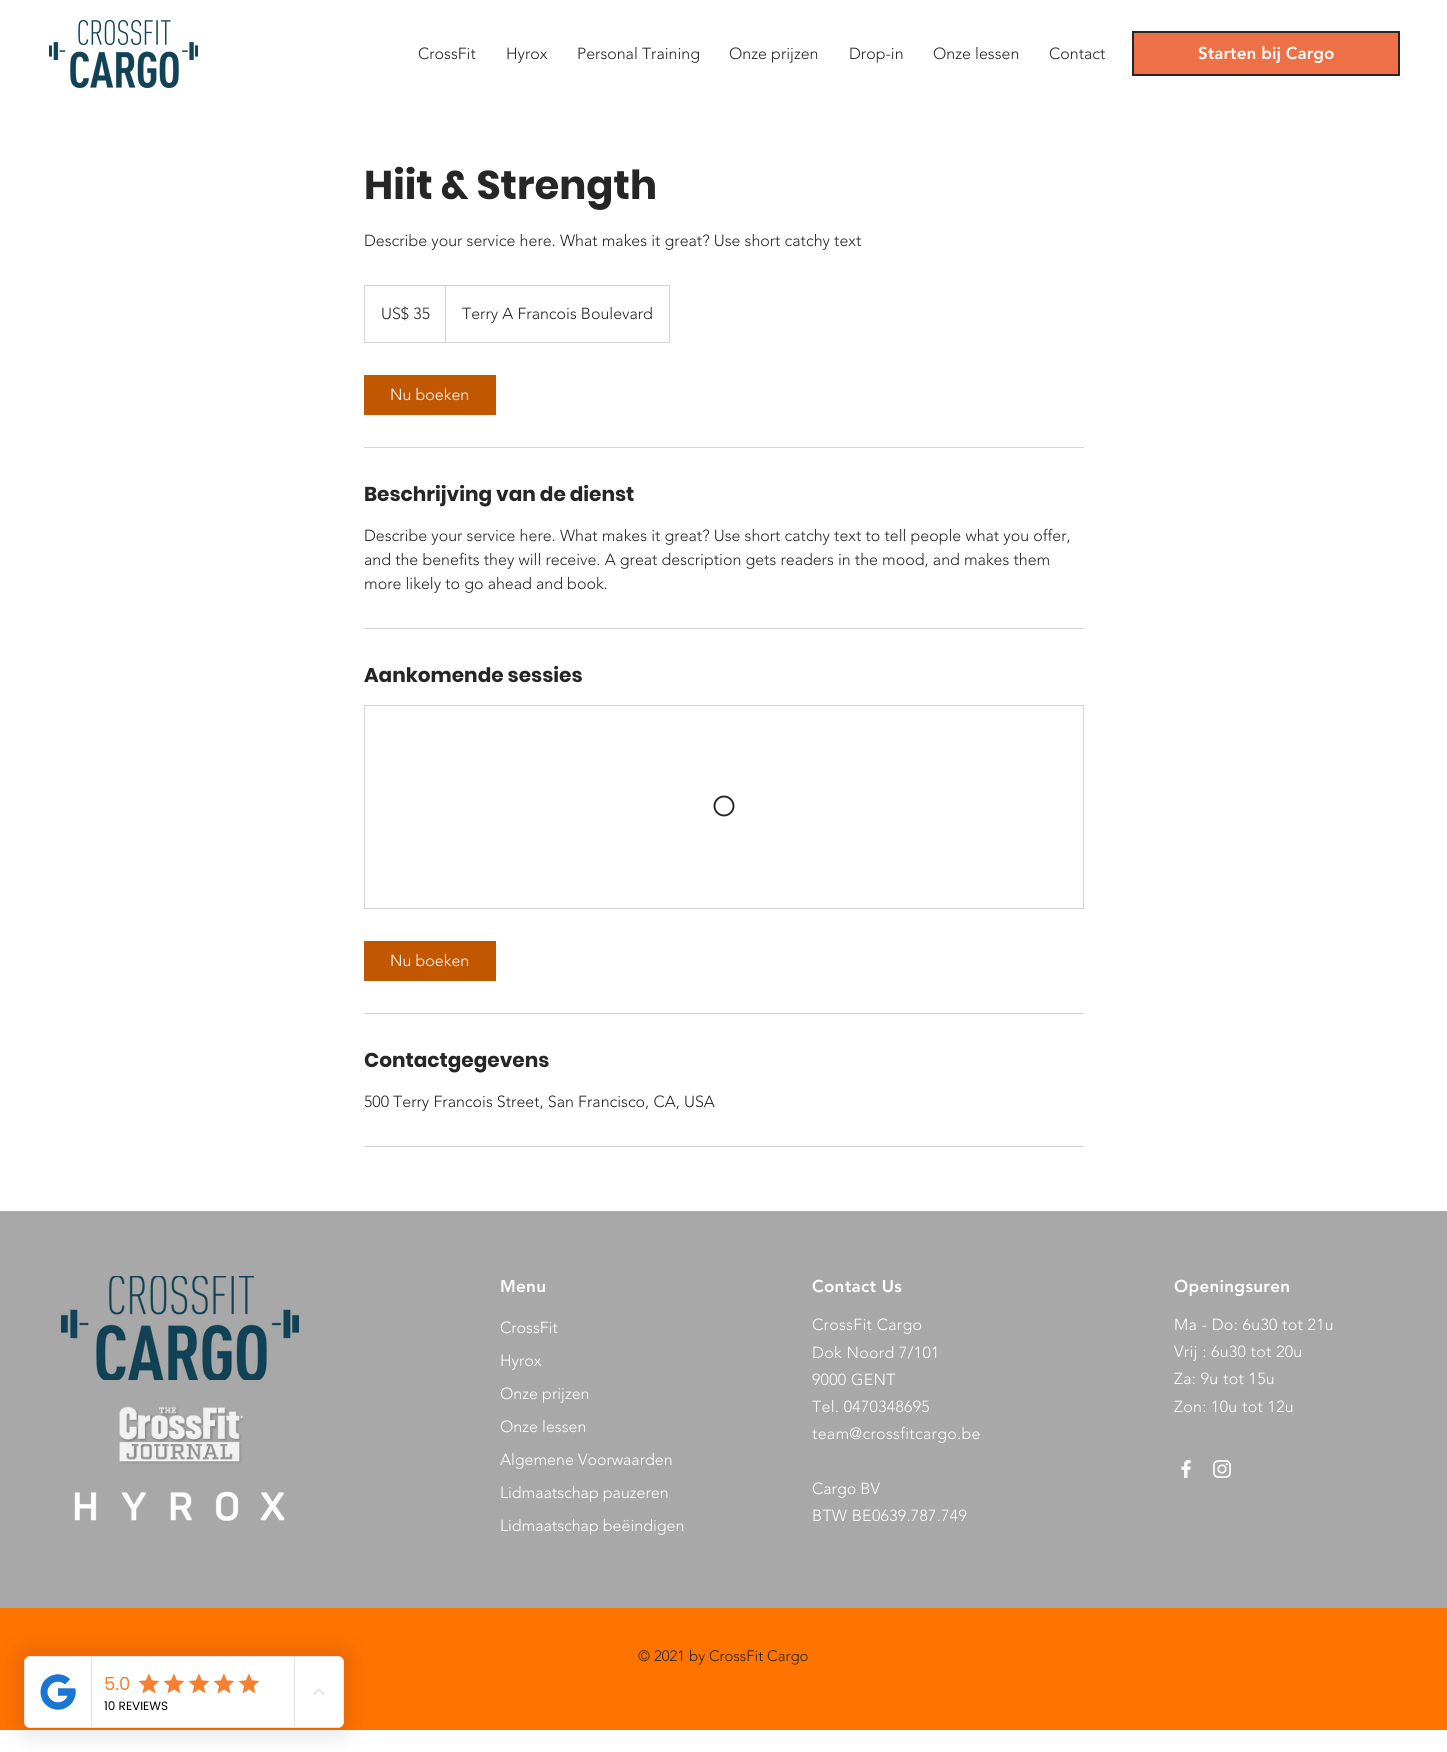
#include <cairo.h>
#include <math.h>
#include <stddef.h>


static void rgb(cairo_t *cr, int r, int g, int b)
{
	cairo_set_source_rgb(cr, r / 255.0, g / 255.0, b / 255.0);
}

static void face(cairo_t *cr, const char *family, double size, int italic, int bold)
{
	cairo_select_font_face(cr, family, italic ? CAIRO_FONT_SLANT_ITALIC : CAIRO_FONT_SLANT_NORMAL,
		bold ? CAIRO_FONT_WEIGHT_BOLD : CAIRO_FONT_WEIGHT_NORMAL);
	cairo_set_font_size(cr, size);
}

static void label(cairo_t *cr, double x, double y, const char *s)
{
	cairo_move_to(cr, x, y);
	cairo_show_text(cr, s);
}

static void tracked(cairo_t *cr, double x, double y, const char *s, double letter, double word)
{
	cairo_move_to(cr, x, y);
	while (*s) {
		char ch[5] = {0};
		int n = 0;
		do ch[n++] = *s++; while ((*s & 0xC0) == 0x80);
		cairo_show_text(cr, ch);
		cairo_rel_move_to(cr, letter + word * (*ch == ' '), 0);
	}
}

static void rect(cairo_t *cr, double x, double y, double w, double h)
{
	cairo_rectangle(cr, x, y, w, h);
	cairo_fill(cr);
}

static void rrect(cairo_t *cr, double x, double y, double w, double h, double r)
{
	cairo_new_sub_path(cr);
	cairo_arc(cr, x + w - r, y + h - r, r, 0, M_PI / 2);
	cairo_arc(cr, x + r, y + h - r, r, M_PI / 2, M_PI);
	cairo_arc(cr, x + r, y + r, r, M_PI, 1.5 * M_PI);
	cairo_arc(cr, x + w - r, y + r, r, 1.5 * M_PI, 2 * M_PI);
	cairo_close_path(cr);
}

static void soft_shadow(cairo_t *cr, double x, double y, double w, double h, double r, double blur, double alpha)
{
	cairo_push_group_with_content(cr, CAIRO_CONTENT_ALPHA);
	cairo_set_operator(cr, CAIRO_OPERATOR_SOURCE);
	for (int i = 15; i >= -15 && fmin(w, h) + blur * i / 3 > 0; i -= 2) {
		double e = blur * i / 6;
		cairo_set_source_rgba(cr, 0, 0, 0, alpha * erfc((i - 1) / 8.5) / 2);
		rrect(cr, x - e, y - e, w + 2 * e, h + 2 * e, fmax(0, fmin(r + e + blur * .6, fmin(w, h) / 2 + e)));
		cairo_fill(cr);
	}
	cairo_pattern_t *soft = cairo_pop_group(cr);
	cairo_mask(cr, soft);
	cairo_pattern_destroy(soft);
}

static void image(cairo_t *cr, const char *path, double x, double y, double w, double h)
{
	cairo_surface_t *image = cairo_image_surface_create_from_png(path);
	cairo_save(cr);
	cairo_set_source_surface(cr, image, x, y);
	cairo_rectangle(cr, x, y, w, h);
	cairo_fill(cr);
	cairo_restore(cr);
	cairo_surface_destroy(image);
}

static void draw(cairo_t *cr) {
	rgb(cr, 255, 255, 255);
	cairo_paint(cr);
	image(cr, "image0.png", 49, 20, 149, 68);
	face(cr, "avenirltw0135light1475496 Light", 16, 0, 0);
	rgb(cr, 38, 38, 38);
	label(cr, 418, 59, "CrossFit");
	label(cr, 506, 59, "Hyrox");
	label(cr, 577, 59, "Personal Training");
	label(cr, 729, 59, "Onze prijzen");
	label(cr, 849, 59, "Drop-in");
	label(cr, 933, 59, "Onze lessen");
	label(cr, 1049, 59, "Contact");
	rgb(cr, 237, 112, 70);
	cairo_rectangle(cr, 1133, 32, 266, 43);
	cairo_fill_preserve(cr);
	rgb(cr, 38, 38, 38);
	cairo_stroke(cr);
	face(cr, "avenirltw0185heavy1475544 Black", 17, 0, 0);
	rgb(cr, 255, 255, 255);
	label(cr, 1198, 59, "Starten bij Cargo");
	face(cr, "Poppins", 40, 0, 1);
	rgb(cr, 38, 38, 38);
	label(cr, 364, 199, "Hiit & Strength");
	face(cr, "avenirltw0135light1475496 Light", 16, 0, 0);
	label(cr, 364, 246, "Describe your service here. What makes it great? Use short catchy text");
	cairo_rectangle(cr, 364.5, 285.5, 305, 57);
	rgb(cr, 212, 212, 212);
	cairo_set_line_width(cr, 1);
	cairo_stroke(cr);
	rgb(cr, 38, 38, 38);
	label(cr, 381, 319, "US$ 35");
	rgb(cr, 212, 212, 212);
	cairo_new_path(cr);
	cairo_move_to(cr, 445, 342);
	cairo_line_to(cr, 445, 285);
	cairo_line_to(cr, 446, 286);
	cairo_line_to(cr, 446, 342);
	cairo_close_path(cr);
	cairo_fill(cr);
	rgb(cr, 38, 38, 38);
	label(cr, 462, 319, "Terry A Francois Boulevard");
	rgb(cr, 193, 87, 0);
	rect(cr, 364, 375, 132, 40);
	rgb(cr, 255, 255, 255);
	label(cr, 390, 400, "Nu boeken");
	rgb(cr, 212, 212, 212);
	rect(cr, 364, 447, 720, 1);
	face(cr, "Poppins", 20, 0, 1);
	rgb(cr, 38, 38, 38);
	label(cr, 364, 501, "Beschrijving van de dienst");
	face(cr, "avenirltw0135light1475496 Light", 16, 0, 0);
	label(cr, 364, 541, "Describe your service here. What makes it great? Use short catchy text to tell people what you offer,");
	label(cr, 364, 565, "and the benefits they will receive. A great description gets readers in the mood, and makes them");
	label(cr, 364, 589, "more likely to go ahead and book.");
	rgb(cr, 212, 212, 212);
	rect(cr, 364, 628, 720, 1);
	face(cr, "Poppins", 20, 0, 1);
	rgb(cr, 38, 38, 38);
	label(cr, 364, 682, "Aankomende sessies");
	cairo_rectangle(cr, 364.5, 705.5, 719, 203);
	rgb(cr, 212, 212, 212);
	cairo_stroke(cr);
	cairo_arc(cr, 724, 806, 9.5, 0, 2 * M_PI);
	rgb(cr, 38, 38, 38);
	cairo_set_line_width(cr, 1.9);
	cairo_stroke(cr);
	rgb(cr, 193, 87, 0);
	rect(cr, 364, 941, 132, 40);
	face(cr, "avenirltw0135light1475496 Light", 16, 0, 0);
	rgb(cr, 255, 255, 255);
	label(cr, 390, 966, "Nu boeken");
	rgb(cr, 212, 212, 212);
	rect(cr, 364, 1013, 720, 1);
	face(cr, "Poppins", 20, 0, 1);
	rgb(cr, 38, 38, 38);
	label(cr, 364, 1067, "Contactgegevens");
	face(cr, "avenirltw0135light1475496 Light", 16, 0, 0);
	label(cr, 364, 1107, "500 Terry Francois Street, San Francisco, CA, USA");
	rgb(cr, 212, 212, 212);
	rect(cr, 364, 1146, 720, 1);
	rgb(cr, 168, 168, 168);
	rect(cr, 0, 1211, 1447, 397);
	image(cr, "image1.png", 61, 1276, 238, 104);
	image(cr, "image2.png", 119, 1406, 124, 58);
	image(cr, "image3.png", 74, 1491, 211, 30);
	face(cr, "avenirltw0185heavy1475544 Black", 17, 0, 0);
	rgb(cr, 255, 255, 255);
	tracked(cr, 500, 1292, "Menu", 0.3, 0);
	face(cr, "avenirltw0135light1475496 Light", 16, 0, 0);
	label(cr, 500, 1333, "CrossFit");
	label(cr, 500, 1366, "Hyrox");
	label(cr, 500, 1399, "Onze prijzen");
	label(cr, 500, 1432, "Onze lessen");
	label(cr, 500, 1465, "Algemene Voorwaarden");
	label(cr, 500, 1498, "Lidmaatschap pauzeren");
	label(cr, 500, 1531, "Lidmaatschap beëindigen");
	face(cr, "avenirltw0185heavy1475544 Black", 17, 0, 0);
	tracked(cr, 812, 1292, "Contact Us", 0.3, 0);
	face(cr, "avenirltw0135light1475496 Light", 16, 0, 0);
	tracked(cr, 812, 1330, "CrossFit Cargo", 0.3, 0);
	tracked(cr, 812, 1358, "Dok Noord 7/101", 0.3, 0);
	tracked(cr, 812, 1385, "9000 GENT", 0.3, 0);
	tracked(cr, 812, 1412, "Tel. 0470348695", 0.3, 0);
	tracked(cr, 812, 1439, "team@crossfitcargo.be", 0.3, 0);
	label(cr, 812, 1494, "Cargo BV");
	tracked(cr, 812, 1521, "BTW BE0639.787.749", 0.3, 0);
	face(cr, "avenirltw0185heavy1475544 Black", 17, 0, 0);
	tracked(cr, 1174, 1292, "Openingsuren", 0.3, 0);
	face(cr, "avenirltw0135light1475496 Light", 16, 0, 0);
	tracked(cr, 1174, 1330, "Ma - Do: 6u30 tot 21u", 0.3, 0);
	tracked(cr, 1174, 1357, "Vrij : 6u30 tot 20u", 0.3, 0);
	tracked(cr, 1174, 1384, "Za: 9u tot 15u", 0.3, 0);
	tracked(cr, 1174, 1412, "Zon: 10u tot 12u", 0.3, 0);
	image(cr, "image4.png", 1181, 1459, 10, 20);
	image(cr, "image5.png", 1213, 1460, 18, 18);
	rgb(cr, 255, 115, 0);
	rect(cr, 0, 1608, 1447, 122);
	face(cr, "avenirltw0135light1475496 Light", 15, 0, 0);
	rgb(cr, 38, 38, 38);
	label(cr, 638, 1661, "© 2021 by CrossFit Cargo");
	rgb(cr, 0, 0, 0);
	soft_shadow(cr, 18, 1650, 332, 84, 12, 12, 0.12);
	rgb(cr, 255, 255, 255);
	rrect(cr, 24.5, 1656.5, 319, 71, 5.5);
	cairo_fill_preserve(cr);
	rgb(cr, 229, 229, 229);
	cairo_set_line_width(cr, 1);
	cairo_stroke(cr);
	rgb(cr, 255, 255, 255);
	cairo_new_path(cr);
	cairo_move_to(cr, 31, 1657);
	cairo_line_to(cr, 92, 1657);
	cairo_line_to(cr, 92, 1727);
	cairo_line_to(cr, 31, 1727);
	cairo_curve_to(cr, 27.5, 1727, 25, 1724.5, 25, 1721);
	cairo_line_to(cr, 25, 1663);
	cairo_curve_to(cr, 25, 1659.5, 27.5, 1657, 31, 1657);
	cairo_close_path(cr);
	cairo_fill(cr);
	rgb(cr, 229, 229, 229);
	rect(cr, 91, 1657, 1, 70);
	image(cr, "image6.png", 40, 1674, 36, 36);
	rect(cr, 294, 1657, 1, 70);
	face(cr, "Poppins", 18, 0, 0);
	rgb(cr, 247, 128, 47);
	label(cr, 104, 1690, "5.0");
	image(cr, "image8.png", 138, 1674, 21, 19);
	image(cr, "image7.png", 138, 1673, 22, 21);
	image(cr, "image8.png", 163, 1674, 21, 19);
	image(cr, "image7.png", 163, 1673, 22, 21);
	image(cr, "image8.png", 188, 1674, 21, 19);
	image(cr, "image7.png", 188, 1673, 22, 21);
	image(cr, "image8.png", 213, 1674, 21, 19);
	image(cr, "image7.png", 213, 1673, 22, 21);
	image(cr, "image8.png", 238, 1674, 21, 19);
	image(cr, "image7.png", 238, 1673, 22, 21);
	face(cr, "Poppins", 12, 0, 0);
	rgb(cr, 0, 0, 0);
	label(cr, 104, 1710, "10 REVIEWS");
	image(cr, "image9.png", 313, 1688, 12, 8);
}

int main(void) {
	cairo_surface_t *surface = cairo_image_surface_create(CAIRO_FORMAT_RGB24, 1447, 1752);
	cairo_t *cr = cairo_create(surface);
	cairo_font_options_t *options = cairo_font_options_create();
	cairo_font_options_set_hint_metrics(options, CAIRO_HINT_METRICS_OFF);
	cairo_font_options_set_hint_style(options, CAIRO_HINT_STYLE_NONE);
	cairo_set_font_options(cr, options);
	cairo_set_miter_limit(cr, 4);
	draw(cr);
	cairo_surface_write_to_png(surface, "render.png");
	cairo_font_options_destroy(options);
	cairo_destroy(cr);
	cairo_surface_destroy(surface);
	return 0;
}
